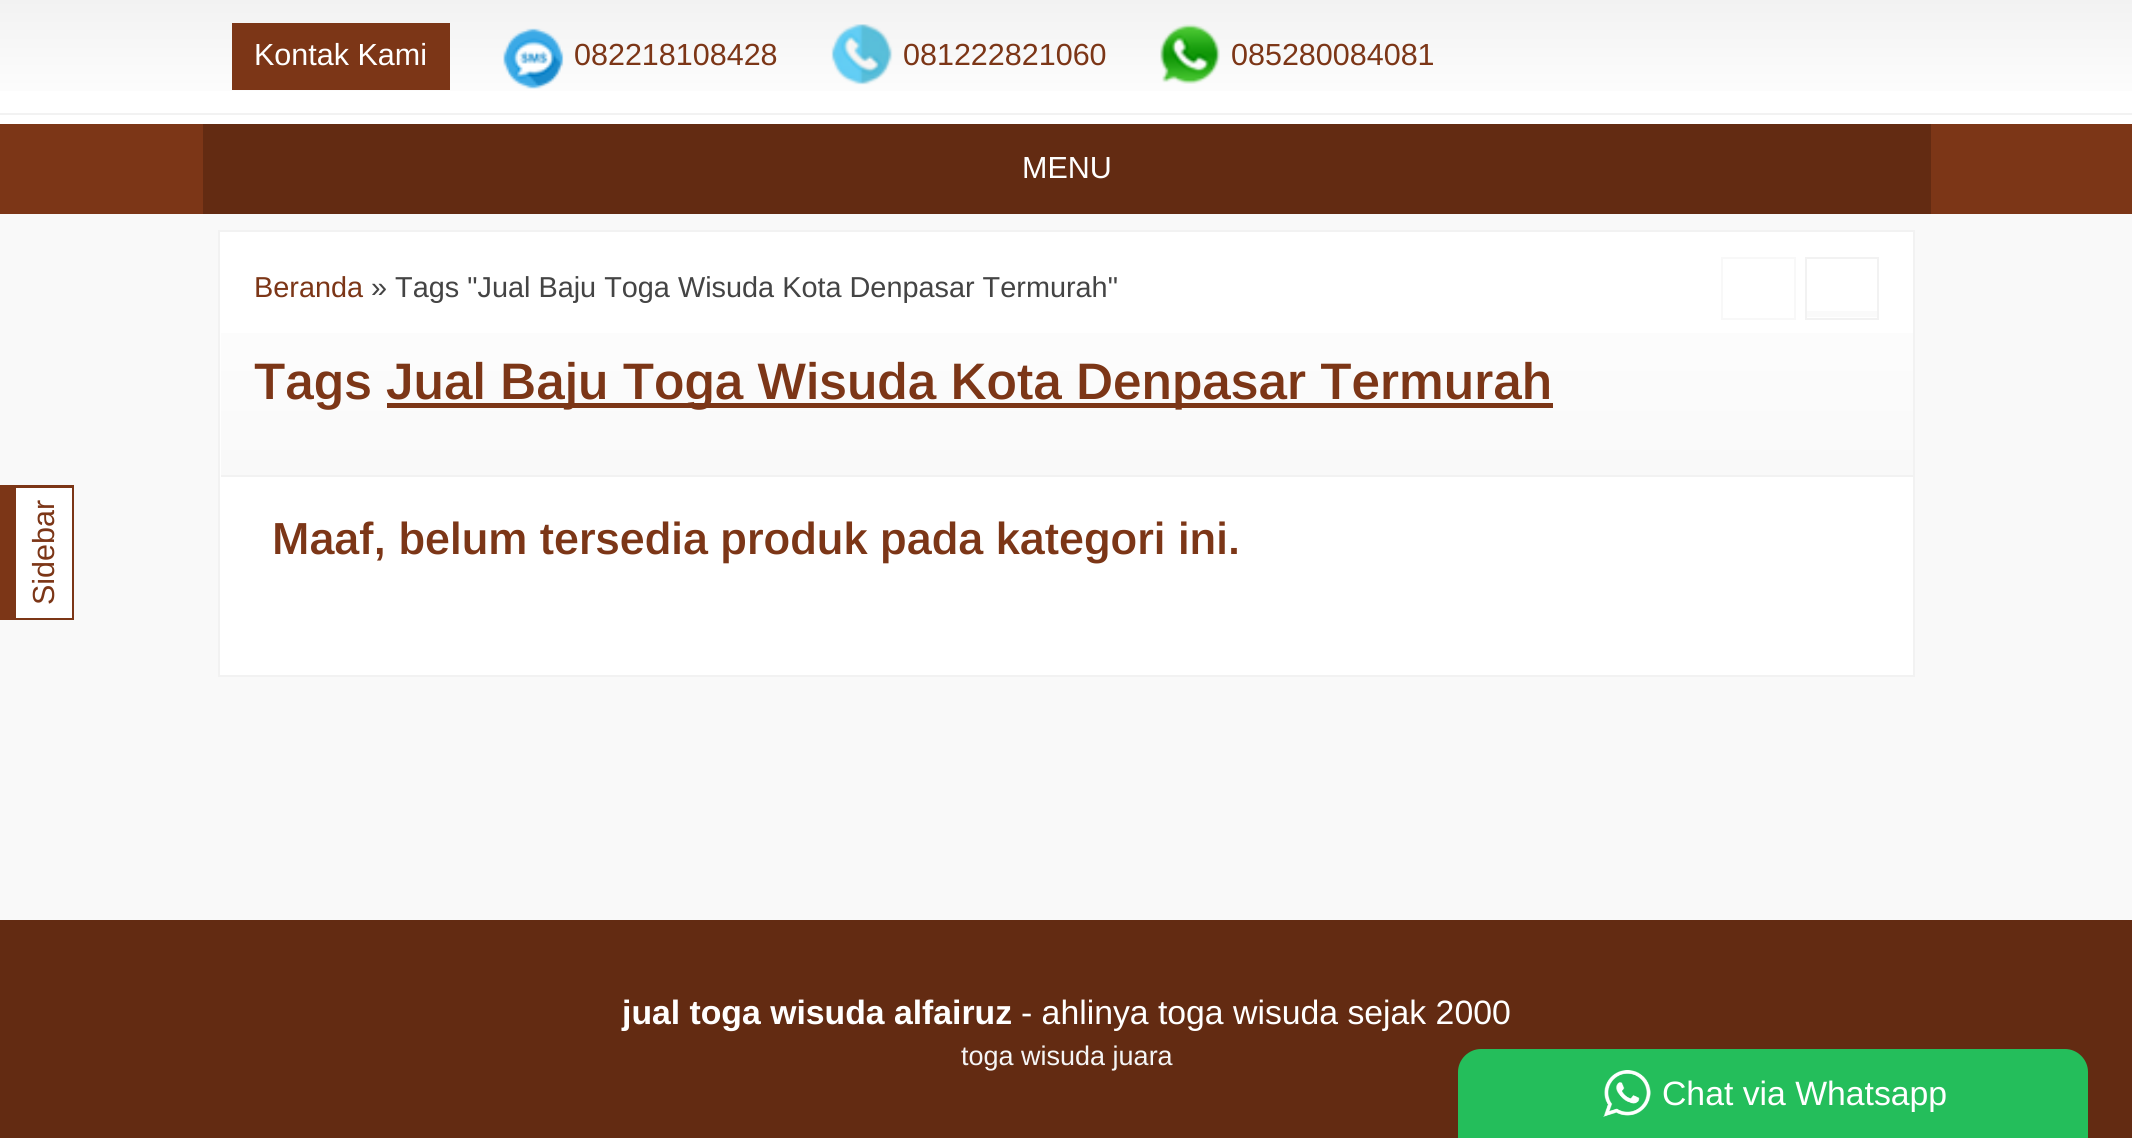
#include <cairo.h>
#include <math.h>
#include <stddef.h>


static void rgb(cairo_t *cr, int r, int g, int b)
{
	cairo_set_source_rgb(cr, r / 255.0, g / 255.0, b / 255.0);
}

static void face(cairo_t *cr, const char *family, double size, int italic, int bold)
{
	cairo_select_font_face(cr, family, italic ? CAIRO_FONT_SLANT_ITALIC : CAIRO_FONT_SLANT_NORMAL,
		bold ? CAIRO_FONT_WEIGHT_BOLD : CAIRO_FONT_WEIGHT_NORMAL);
	cairo_set_font_size(cr, size);
}

static void label(cairo_t *cr, double x, double y, const char *s)
{
	cairo_move_to(cr, x, y);
	cairo_show_text(cr, s);
}

static void rect(cairo_t *cr, double x, double y, double w, double h)
{
	cairo_rectangle(cr, x, y, w, h);
	cairo_fill(cr);
}

static void image(cairo_t *cr, const char *path, double x, double y, double w, double h)
{
	cairo_surface_t *image = cairo_image_surface_create_from_png(path);
	cairo_save(cr);
	cairo_set_source_surface(cr, image, x, y);
	cairo_rectangle(cr, x, y, w, h);
	cairo_fill(cr);
	cairo_restore(cr);
	cairo_surface_destroy(image);
}

static void draw(cairo_t *cr) {
	cairo_pattern_t *gradient;
	rgb(cr, 255, 255, 255);
	cairo_paint(cr);
	gradient = cairo_pattern_create_linear(1067, 0, 1067, 113);
	cairo_pattern_add_color_stop_rgba(gradient, 0, 0.949, 0.949, 0.949, 1);
	cairo_pattern_add_color_stop_rgba(gradient, 1, 1, 1, 1, 1);
	cairo_set_source(cr, gradient);
	cairo_pattern_destroy(gradient);
	rect(cr, 0, 0, 2132, 91);
	gradient = cairo_pattern_create_linear(1067, 112, 1067, 225);
	cairo_pattern_add_color_stop_rgba(gradient, 0, 0.949, 0.949, 0.949, 1);
	cairo_pattern_add_color_stop_rgba(gradient, 1, 1, 1, 1, 1);
	cairo_set_source(cr, gradient);
	cairo_pattern_destroy(gradient);
	rect(cr, 0, 113, 2132, 2);
	rgb(cr, 124, 54, 23);
	rect(cr, 232, 23, 218, 67);
	face(cr, "Arimo", 30.5, 0, 0);
	rgb(cr, 255, 255, 255);
	label(cr, 254, 65, "Kontak Kami");
	image(cr, "image0.png", 503, 28, 61, 61);
	rgb(cr, 124, 54, 23);
	label(cr, 574, 65, "082218108428");
	image(cr, "image1.png", 831, 24, 62, 61);
	label(cr, 903, 65, "081222821060");
	image(cr, "image2.png", 1160, 24, 60, 60);
	label(cr, 1231, 65, "085280084081");
	rect(cr, 0, 124, 2132, 90);
	rgb(cr, 99, 43, 18);
	rect(cr, 203, 124, 1728, 90);
	rgb(cr, 255, 255, 255);
	label(cr, 1022, 178, "MENU");
	rgb(cr, 249, 249, 249);
	rect(cr, 0, 214, 2132, 706);
	rgb(cr, 255, 255, 255);
	rect(cr, 16, 488, 56, 130);
	rgb(cr, 124, 54, 23);
	rect(cr, 0, 488, 16, 130);
	rect(cr, 0, 485, 74, 3);
	rect(cr, 72, 485, 2, 135);
	rect(cr, 0, 618, 74, 2);
	cairo_save(cr);
	cairo_translate(cr, 54, 605);
	cairo_rotate(cr, -90 * M_PI / 180);
	label(cr, 0, 0, "Sidebar");
	cairo_restore(cr);
	rgb(cr, 255, 255, 255);
	cairo_rectangle(cr, 219, 231, 1695, 445);
	cairo_fill_preserve(cr);
	rgb(cr, 242, 242, 242);
	cairo_stroke(cr);
	gradient = cairo_pattern_create_linear(1067, 232, 1067, 475);
	cairo_pattern_add_color_stop_rgba(gradient, 0, 1, 1, 1, 1);
	cairo_pattern_add_color_stop_rgba(gradient, 1, 0.976, 0.976, 0.976, 1);
	cairo_set_source(cr, gradient);
	cairo_pattern_destroy(gradient);
	rect(cr, 221, 333, 1692, 142);
	rgb(cr, 242, 242, 242);
	rect(cr, 221, 475, 1692, 2);
	face(cr, "Arimo", 28.85, 0, 0);
	rgb(cr, 124, 54, 23);
	label(cr, 254, 297, "Beranda");
	rgb(cr, 68, 68, 68);
	label(cr, 371, 297, "» Tags \"Jual Baju Toga Wisuda Kota Denpasar Termurah\"");
	cairo_rectangle(cr, 1722, 258, 73, 61);
	rgb(cr, 248, 248, 248);
	cairo_stroke(cr);
	gradient = cairo_pattern_create_linear(1842, 317, 1842, 259);
	cairo_pattern_add_color_stop_rgba(gradient, 0, 0.98, 0.98, 0.98, 1);
	cairo_pattern_add_color_stop_rgba(gradient, 1, 1, 1, 1, 1);
	cairo_set_source(cr, gradient);
	cairo_pattern_destroy(gradient);
	rect(cr, 1807, 311, 70, 6);
	cairo_rectangle(cr, 1806, 258, 72, 61);
	rgb(cr, 242, 242, 242);
	cairo_stroke(cr);
	face(cr, "Arimo SemiBold", 51.3, 0, 0);
	rgb(cr, 124, 54, 23);
	label(cr, 254, 399, "Tags");
	rect(cr, 387, 403, 1166, 5);
	label(cr, 386, 399, "Jual Baju Toga Wisuda Kota Denpasar Termurah");
	face(cr, "Arimo SemiBold", 44.9, 0, 0);
	label(cr, 272, 554, "Maaf, belum tersedia produk pada kategori ini.");
	rgb(cr, 99, 43, 18);
	rect(cr, 0, 920, 2132, 218);
	face(cr, "Arimo", 33.75, 0, 1);
	rgb(cr, 255, 255, 255);
	label(cr, 622, 1024, "jual toga wisuda alfairuz");
	face(cr, "Arimo", 33.75, 0, 0);
	label(cr, 1021, 1024, "- ahlinya toga wisuda sejak 2000");
	face(cr, "Arimo", 27, 0, 0);
	rgb(cr, 245, 245, 245);
	label(cr, 961, 1065, "toga wisuda juara");
	rgb(cr, 36, 190, 91);
	cairo_new_path(cr);
	cairo_move_to(cr, 1481, 1049);
	cairo_line_to(cr, 2065, 1049);
	cairo_curve_to(cr, 2077.5, 1049, 2088, 1059.5, 2088, 1072);
	cairo_line_to(cr, 2088, 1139);
	cairo_line_to(cr, 1458, 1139);
	cairo_line_to(cr, 1458, 1072);
	cairo_curve_to(cr, 1458, 1059.5, 1468.5, 1049, 1481, 1049);
	cairo_close_path(cr);
	cairo_fill(cr);
	image(cr, "image3.png", 1603, 1070, 48, 47);
	face(cr, "Arimo", 33.75, 0, 0);
	rgb(cr, 255, 255, 255);
	label(cr, 1662, 1105, "Chat via Whatsapp");
}

int main(void) {
	cairo_surface_t *surface = cairo_image_surface_create(CAIRO_FORMAT_RGB24, 2132, 1138);
	cairo_t *cr = cairo_create(surface);
	cairo_font_options_t *options = cairo_font_options_create();
	cairo_font_options_set_hint_metrics(options, CAIRO_HINT_METRICS_OFF);
	cairo_font_options_set_hint_style(options, CAIRO_HINT_STYLE_NONE);
	cairo_set_font_options(cr, options);
	cairo_set_miter_limit(cr, 4);
	draw(cr);
	cairo_surface_write_to_png(surface, "render.png");
	cairo_font_options_destroy(options);
	cairo_destroy(cr);
	cairo_surface_destroy(surface);
	return 0;
}
